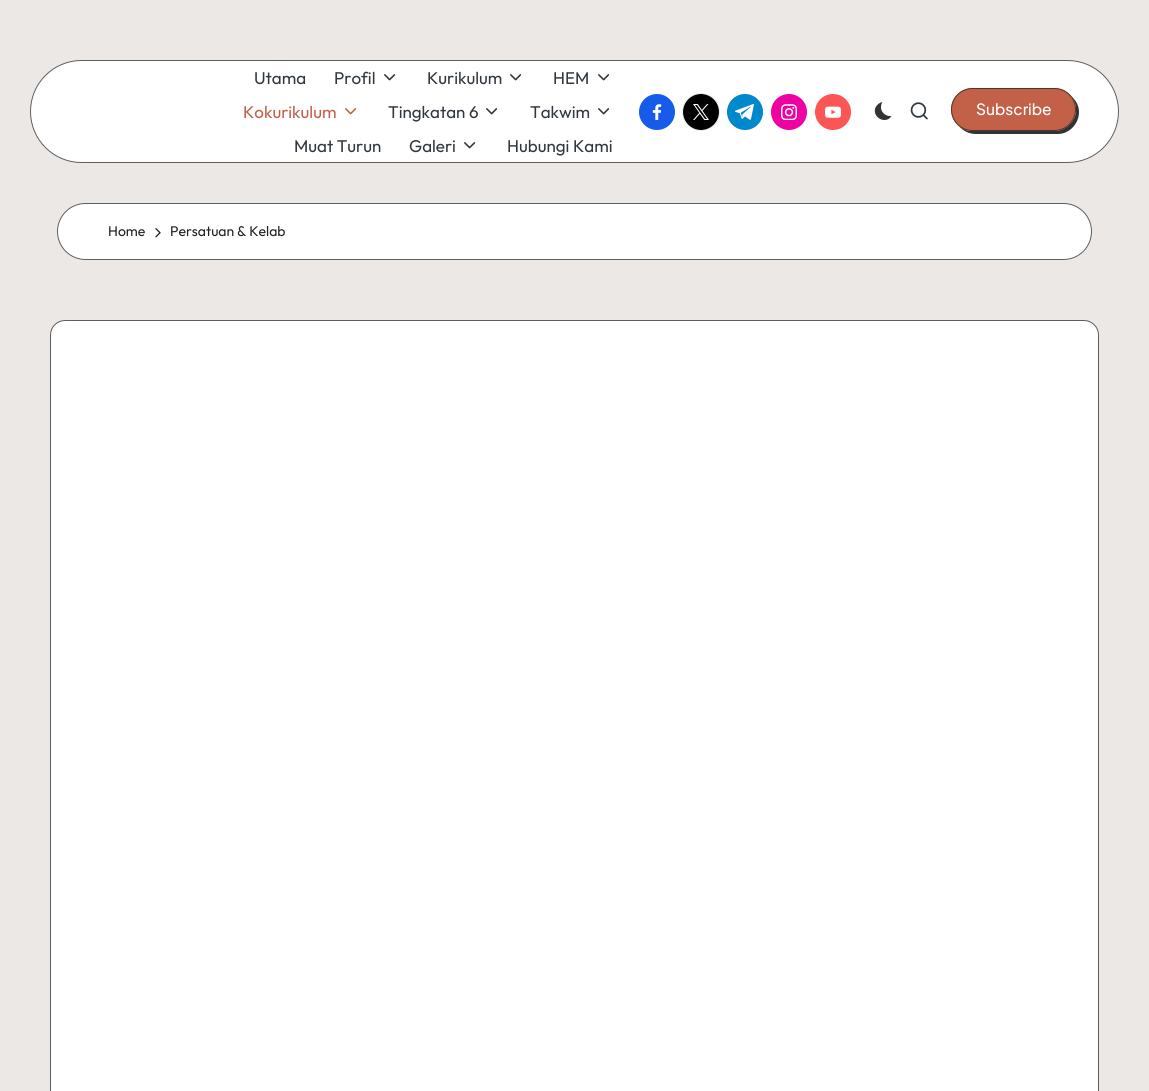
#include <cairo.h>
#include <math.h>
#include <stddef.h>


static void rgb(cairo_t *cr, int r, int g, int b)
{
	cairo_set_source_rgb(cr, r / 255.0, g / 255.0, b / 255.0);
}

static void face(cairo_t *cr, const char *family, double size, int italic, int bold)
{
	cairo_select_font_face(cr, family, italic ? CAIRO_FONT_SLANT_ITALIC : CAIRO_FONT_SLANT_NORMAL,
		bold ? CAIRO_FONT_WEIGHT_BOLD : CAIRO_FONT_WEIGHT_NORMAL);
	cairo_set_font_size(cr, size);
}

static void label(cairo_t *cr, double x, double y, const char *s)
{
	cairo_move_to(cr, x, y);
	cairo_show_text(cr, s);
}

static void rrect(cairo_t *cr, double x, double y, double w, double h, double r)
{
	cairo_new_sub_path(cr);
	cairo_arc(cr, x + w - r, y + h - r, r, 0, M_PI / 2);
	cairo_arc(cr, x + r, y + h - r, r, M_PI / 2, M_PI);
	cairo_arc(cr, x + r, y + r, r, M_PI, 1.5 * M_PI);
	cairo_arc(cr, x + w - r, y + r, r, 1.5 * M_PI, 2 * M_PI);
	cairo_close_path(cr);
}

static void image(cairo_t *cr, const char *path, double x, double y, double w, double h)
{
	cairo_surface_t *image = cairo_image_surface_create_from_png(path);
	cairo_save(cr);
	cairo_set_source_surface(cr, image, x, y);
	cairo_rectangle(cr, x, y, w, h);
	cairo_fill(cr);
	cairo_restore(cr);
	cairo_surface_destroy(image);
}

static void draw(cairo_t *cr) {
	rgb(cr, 235, 232, 230);
	cairo_paint(cr);
	rgb(cr, 255, 255, 255);
	rrect(cr, 30, 60, 1089, 103, 51.5);
	cairo_fill(cr);
	rrect(cr, 30.5, 60.5, 1088, 102, 51);
	cairo_set_source_rgba(cr, 0.153, 0.153, 0.153, 0.75);
	cairo_set_line_width(cr, 1);
	cairo_stroke(cr);
	face(cr, "Outfit Thin", 17, 0, 0);
	rgb(cr, 48, 55, 62);
	label(cr, 254, 84, "Utama");
	label(cr, 334, 84, "Profil");
	image(cr, "image0.png", 384, 74, 12, 7);
	label(cr, 427, 84, "Kurikulum");
	image(cr, "image0.png", 510, 74, 12, 7);
	label(cr, 553, 84, "HEM");
	image(cr, "image0.png", 598, 74, 12, 7);
	rgb(cr, 194, 97, 72);
	label(cr, 243, 118, "Kokurikulum");
	image(cr, "image1.png", 345, 108, 12, 7);
	rgb(cr, 48, 55, 62);
	label(cr, 388, 118, "Tingkatan 6");
	image(cr, "image0.png", 486, 108, 12, 7);
	label(cr, 530, 118, "Takwim");
	image(cr, "image0.png", 598, 108, 12, 7);
	label(cr, 294, 152, "Muat Turun");
	label(cr, 409, 152, "Galeri");
	image(cr, "image0.png", 464, 142, 12, 7);
	label(cr, 507, 152, "Hubungi Kami");
	rgb(cr, 23, 91, 235);
	cairo_new_path(cr);
	cairo_arc(cr, 657, 112, 18, 0, 2 * M_PI);
	cairo_fill(cr);
	image(cr, "image2.png", 652, 104, 10, 16);
	rgb(cr, 0, 0, 0);
	cairo_arc(cr, 701, 112, 18, 0, 2 * M_PI);
	cairo_fill(cr);
	cairo_arc(cr, 701, 112, 18.5, 0, 2 * M_PI);
	cairo_set_source_rgba(cr, 0.745, 0.745, 0.745, 0.3);
	cairo_stroke(cr);
	image(cr, "image3.png", 693, 104, 16, 16);
	rgb(cr, 0, 136, 204);
	cairo_arc(cr, 745, 112, 18, 0, 2 * M_PI);
	cairo_fill(cr);
	image(cr, "image4.png", 735, 104, 19, 16);
	rgb(cr, 239, 0, 162);
	cairo_arc(cr, 789, 112, 18, 0, 2 * M_PI);
	cairo_fill(cr);
	image(cr, "image5.png", 781, 104, 16, 16);
	rgb(cr, 251, 85, 85);
	cairo_arc(cr, 833, 112, 18, 0, 2 * M_PI);
	cairo_fill(cr);
	image(cr, "image6.png", 825, 106, 16, 12);
	rgb(cr, 51, 51, 51);
	cairo_new_path(cr);
	cairo_move_to(cr, 891.5, 116);
	cairo_curve_to(cr, 884, 117, 878, 109, 882.5, 102);
	cairo_curve_to(cr, 879.5, 102.5, 877.5, 104.5, 876, 106.5);
	cairo_curve_to(cr, 870.5, 116.5, 885.5, 125.5, 891.5, 116);
	cairo_close_path(cr);
	cairo_fill(cr);
	image(cr, "image7.png", 910, 102, 18, 18);
	cairo_new_path(cr);
	cairo_move_to(cr, 959, 126);
	cairo_curve_to(cr, 963, 131, 969, 134, 976, 134);
	cairo_line_to(cr, 1058, 134);
	cairo_curve_to(cr, 1069, 134, 1079, 124, 1079, 112);
	cairo_curve_to(cr, 1079, 106, 1076, 100, 1071, 96);
	cairo_curve_to(cr, 1074, 100, 1076, 104, 1076, 110);
	cairo_curve_to(cr, 1076, 121, 1066, 131, 1054, 131);
	cairo_line_to(cr, 972, 131);
	cairo_curve_to(cr, 967, 131, 963, 129, 959, 126);
	cairo_close_path(cr);
	cairo_fill(cr);
	rgb(cr, 194, 97, 72);
	rrect(cr, 951, 88, 125, 43, 21.5);
	cairo_fill(cr);
	rrect(cr, 951.5, 88.5, 124, 42, 21);
	cairo_set_source_rgba(cr, 0.153, 0.153, 0.153, 0.75);
	cairo_stroke(cr);
	face(cr, "Plus Jakarta Sans Medium", 15.5, 0, 0);
	rgb(cr, 255, 255, 255);
	label(cr, 976, 115, "Subscribe");
	rrect(cr, 57, 203, 1035, 57, 28.5);
	cairo_fill(cr);
	rrect(cr, 57.5, 203.5, 1034, 56, 28);
	cairo_set_source_rgba(cr, 0.153, 0.153, 0.153, 0.75);
	cairo_stroke(cr);
	face(cr, "Outfit Thin", 14, 0, 0);
	rgb(cr, 33, 33, 33);
	label(cr, 108, 236, "Home");
	image(cr, "image8.png", 155, 228, 6, 10);
	label(cr, 170, 236, "Persatuan & Kelab");
	rgb(cr, 255, 255, 255);
	rrect(cr, 50, 320, 1049, 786, 15);
	cairo_fill(cr);
	rrect(cr, 50.5, 320.5, 1048, 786, 14.5);
	cairo_set_source_rgba(cr, 0.153, 0.153, 0.153, 0.75);
	cairo_stroke(cr);
}

int main(void) {
	cairo_surface_t *surface = cairo_image_surface_create(CAIRO_FORMAT_RGB24, 1149, 1091);
	cairo_t *cr = cairo_create(surface);
	cairo_font_options_t *options = cairo_font_options_create();
	cairo_font_options_set_hint_metrics(options, CAIRO_HINT_METRICS_OFF);
	cairo_font_options_set_hint_style(options, CAIRO_HINT_STYLE_NONE);
	cairo_set_font_options(cr, options);
	cairo_set_miter_limit(cr, 4);
	draw(cr);
	cairo_surface_write_to_png(surface, "render.png");
	cairo_font_options_destroy(options);
	cairo_destroy(cr);
	cairo_surface_destroy(surface);
	return 0;
}
